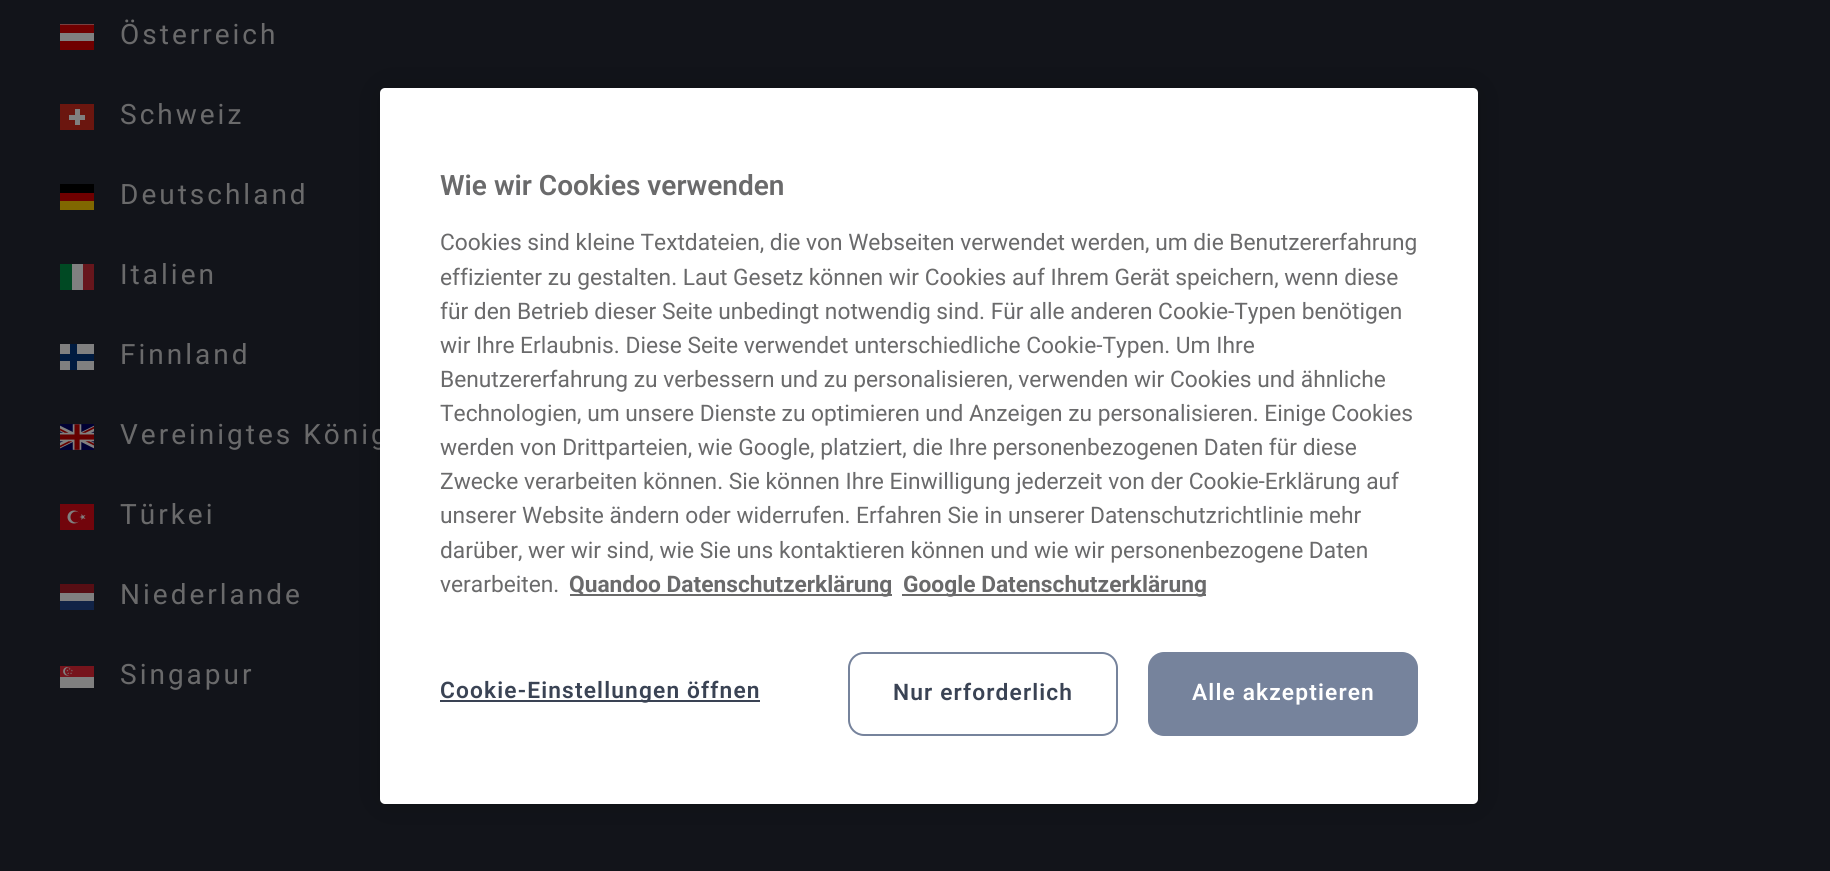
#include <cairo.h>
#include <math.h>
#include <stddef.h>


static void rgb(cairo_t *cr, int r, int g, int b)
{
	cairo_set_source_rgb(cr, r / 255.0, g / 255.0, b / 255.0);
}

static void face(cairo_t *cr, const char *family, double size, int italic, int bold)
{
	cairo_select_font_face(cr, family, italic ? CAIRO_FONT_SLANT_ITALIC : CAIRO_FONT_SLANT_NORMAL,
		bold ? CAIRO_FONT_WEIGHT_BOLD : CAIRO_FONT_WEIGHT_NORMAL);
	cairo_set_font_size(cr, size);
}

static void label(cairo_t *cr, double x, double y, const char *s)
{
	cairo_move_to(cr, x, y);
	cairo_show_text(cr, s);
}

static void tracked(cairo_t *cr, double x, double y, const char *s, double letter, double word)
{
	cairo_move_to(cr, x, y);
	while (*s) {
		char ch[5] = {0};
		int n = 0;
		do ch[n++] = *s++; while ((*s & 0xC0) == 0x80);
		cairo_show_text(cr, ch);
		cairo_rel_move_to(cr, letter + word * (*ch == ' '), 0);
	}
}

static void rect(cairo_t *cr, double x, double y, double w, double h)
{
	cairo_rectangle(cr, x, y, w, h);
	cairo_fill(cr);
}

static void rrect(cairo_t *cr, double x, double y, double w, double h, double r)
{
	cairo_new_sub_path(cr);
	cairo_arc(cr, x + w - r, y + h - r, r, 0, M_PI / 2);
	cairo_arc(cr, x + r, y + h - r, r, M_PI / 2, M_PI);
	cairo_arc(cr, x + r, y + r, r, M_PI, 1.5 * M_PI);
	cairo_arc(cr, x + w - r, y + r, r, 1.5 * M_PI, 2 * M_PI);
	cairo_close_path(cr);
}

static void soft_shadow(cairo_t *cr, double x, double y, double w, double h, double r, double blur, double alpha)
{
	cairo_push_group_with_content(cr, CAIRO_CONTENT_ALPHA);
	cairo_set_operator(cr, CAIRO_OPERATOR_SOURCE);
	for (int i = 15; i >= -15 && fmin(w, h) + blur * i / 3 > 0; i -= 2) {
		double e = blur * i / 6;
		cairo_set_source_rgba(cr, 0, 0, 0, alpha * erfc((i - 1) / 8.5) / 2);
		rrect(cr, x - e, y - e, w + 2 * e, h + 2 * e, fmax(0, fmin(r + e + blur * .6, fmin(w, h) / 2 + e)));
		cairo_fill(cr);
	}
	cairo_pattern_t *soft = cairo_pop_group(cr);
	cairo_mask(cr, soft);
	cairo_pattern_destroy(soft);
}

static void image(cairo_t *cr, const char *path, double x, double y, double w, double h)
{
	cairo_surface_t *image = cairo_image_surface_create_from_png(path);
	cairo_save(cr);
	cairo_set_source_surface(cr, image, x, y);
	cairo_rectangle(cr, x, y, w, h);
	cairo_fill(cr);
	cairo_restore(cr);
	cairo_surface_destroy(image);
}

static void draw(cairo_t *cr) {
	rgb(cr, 18, 20, 26);
	cairo_paint(cr);
	rgb(cr, 128, 128, 128);
	rect(cr, 60, 24, 34, 17);
	rgb(cr, 112, 0, 0);
	cairo_new_path(cr);
	cairo_move_to(cr, 94, 50);
	cairo_line_to(cr, 60, 50);
	cairo_line_to(cr, 60, 41);
	cairo_line_to(cr, 94, 41);
	cairo_close_path(cr);
	cairo_move_to(cr, 94, 33);
	cairo_line_to(cr, 60, 33);
	cairo_line_to(cr, 60, 24.5);
	cairo_line_to(cr, 94, 24.5);
	cairo_close_path(cr);
	cairo_fill(cr);
	face(cr, "Roboto", 28, 0, 0);
	rgb(cr, 106, 106, 107);
	tracked(cr, 120, 44, "Österreich", 3, 0);
	rgb(cr, 107, 22, 15);
	rect(cr, 60, 104, 34, 26);
	rgb(cr, 128, 128, 128);
	rect(cr, 69, 115, 16, 5);
	rect(cr, 75, 109, 5, 16);
	rgb(cr, 106, 106, 107);
	tracked(cr, 120, 124, "Schweiz", 3, 0);
	rgb(cr, 128, 103, 0);
	rect(cr, 60, 201, 34, 9);
	rgb(cr, 0, 0, 0);
	rect(cr, 60, 184, 34, 9);
	rgb(cr, 111, 0, 0);
	rect(cr, 60, 193, 34, 8);
	rgb(cr, 106, 106, 107);
	tracked(cr, 120, 204, "Deutschland", 3, 0);
	rgb(cr, 128, 128, 128);
	rect(cr, 72, 264, 11, 26);
	rgb(cr, 0, 73, 35);
	rect(cr, 60, 264, 12, 26);
	rgb(cr, 103, 22, 28);
	rect(cr, 83, 264, 11, 26);
	rgb(cr, 106, 106, 107);
	tracked(cr, 120, 284, "Italien", 3, 0);
	rgb(cr, 128, 128, 128);
	rect(cr, 60, 344, 34, 26);
	rgb(cr, 0, 27, 64);
	rect(cr, 60, 354, 34, 7);
	rect(cr, 70, 344, 7, 26);
	rgb(cr, 106, 106, 107);
	tracked(cr, 120, 364, "Finnland", 3, 0);
	image(cr, "image0.png", 60, 424, 34, 26);
	tracked(cr, 120, 444, "Vereinigtes König", 3, 0);
	rgb(cr, 114, 5, 12);
	rect(cr, 60, 504, 34, 26);
	rgb(cr, 128, 128, 128);
	cairo_new_path(cr);
	cairo_arc(cr, 74, 517, 6.5, 0, 2 * M_PI);
	cairo_fill(cr);
	rgb(cr, 114, 5, 12);
	cairo_arc(cr, 76, 517, 5.5, 0, 2 * M_PI);
	cairo_fill(cr);
	rgb(cr, 128, 128, 128);
	cairo_new_path(cr);
	cairo_move_to(cr, 79.5, 517);
	cairo_line_to(cr, 85.5, 519);
	cairo_line_to(cr, 81.5, 514);
	cairo_line_to(cr, 81.5, 520);
	cairo_line_to(cr, 85.5, 515);
	cairo_close_path(cr);
	cairo_fill(cr);
	rgb(cr, 106, 106, 107);
	tracked(cr, 120, 524, "Türkei", 3, 0);
	rgb(cr, 128, 128, 128);
	rect(cr, 60, 593, 34, 8);
	rgb(cr, 17, 35, 70);
	rect(cr, 60, 601, 34, 9);
	rgb(cr, 87, 14, 20);
	rect(cr, 60, 584, 34, 9);
	rgb(cr, 106, 106, 107);
	tracked(cr, 120, 604, "Niederlande", 3, 0);
	image(cr, "image1.png", 60, 666, 34, 22);
	tracked(cr, 120, 684, "Singapur", 3, 0);
	rgb(cr, 0, 0, 0);
	soft_shadow(cr, 380, 88, 1098, 716, 5, 18, 0.2);
	rgb(cr, 255, 255, 255);
	rrect(cr, 380, 88, 1098, 716, 5);
	cairo_fill(cr);
	face(cr, "Roboto SemiBold", 28, 0, 0);
	rgb(cr, 106, 106, 107);
	label(cr, 440, 195, "Wie wir Cookies verwenden");
	face(cr, "Roboto", 22.75, 0, 0);
	label(cr, 440, 250, "Cookies sind kleine Textdateien, die von Webseiten verwendet werden, um die Benutzererfahrung");
	label(cr, 440, 285, "effizienter zu gestalten. Laut Gesetz können wir Cookies auf Ihrem Gerät speichern, wenn diese");
	label(cr, 440, 319, "für den Betrieb dieser Seite unbedingt notwendig sind. Für alle anderen Cookie-Typen benötigen");
	label(cr, 440, 353, "wir Ihre Erlaubnis. Diese Seite verwendet unterschiedliche Cookie-Typen. Um Ihre");
	label(cr, 440, 387, "Benutzererfahrung zu verbessern und zu personalisieren, verwenden wir Cookies und ähnliche");
	label(cr, 440, 421, "Technologien, um unsere Dienste zu optimieren und Anzeigen zu personalisieren. Einige Cookies");
	label(cr, 440, 455, "werden von Drittparteien, wie Google, platziert, die Ihre personenbezogenen Daten für diese");
	label(cr, 440, 489, "Zwecke verarbeiten können. Sie können Ihre Einwilligung jederzeit von der Cookie-Erklärung auf");
	label(cr, 440, 523, "unserer Website ändern oder widerrufen. Erfahren Sie in unserer Datenschutzrichtlinie mehr");
	label(cr, 440, 558, "darüber, wer wir sind, wie Sie uns kontaktieren können und wie wir personenbezogene Daten");
	label(cr, 440, 592, "verarbeiten.");
	rgb(cr, 105, 105, 105);
	rect(cr, 570, 594, 322, 2);
	face(cr, "Roboto", 22.75, 0, 1);
	rgb(cr, 106, 106, 107);
	label(cr, 569, 592, "Quandoo Datenschutzerklärung");
	rgb(cr, 105, 105, 105);
	rect(cr, 902, 594, 304, 2);
	rgb(cr, 106, 106, 107);
	label(cr, 903, 592, "Google Datenschutzerklärung");
	rgb(cr, 58, 67, 84);
	rect(cr, 440, 700, 320, 2);
	face(cr, "Roboto SemiBold", 22.75, 0, 0);
	tracked(cr, 440, 698, "Cookie-Einstellungen öffnen", 1.15, 0);
	rrect(cr, 849, 653, 268, 82, 15);
	rgb(cr, 118, 131, 156);
	cairo_stroke(cr);
	rgb(cr, 58, 67, 84);
	tracked(cr, 893, 700, "Nur erforderlich", 1.15, 0);
	rgb(cr, 118, 131, 156);
	rrect(cr, 1149, 653, 268, 82, 15);
	cairo_fill_preserve(cr);
	cairo_stroke(cr);
	rgb(cr, 255, 255, 255);
	tracked(cr, 1192, 700, "Alle akzeptieren", 1.15, 0);
}

int main(void) {
	cairo_surface_t *surface = cairo_image_surface_create(CAIRO_FORMAT_RGB24, 1830, 871);
	cairo_t *cr = cairo_create(surface);
	cairo_font_options_t *options = cairo_font_options_create();
	cairo_font_options_set_hint_metrics(options, CAIRO_HINT_METRICS_OFF);
	cairo_font_options_set_hint_style(options, CAIRO_HINT_STYLE_NONE);
	cairo_set_font_options(cr, options);
	cairo_set_miter_limit(cr, 4);
	draw(cr);
	cairo_surface_write_to_png(surface, "render.png");
	cairo_font_options_destroy(options);
	cairo_destroy(cr);
	cairo_surface_destroy(surface);
	return 0;
}
